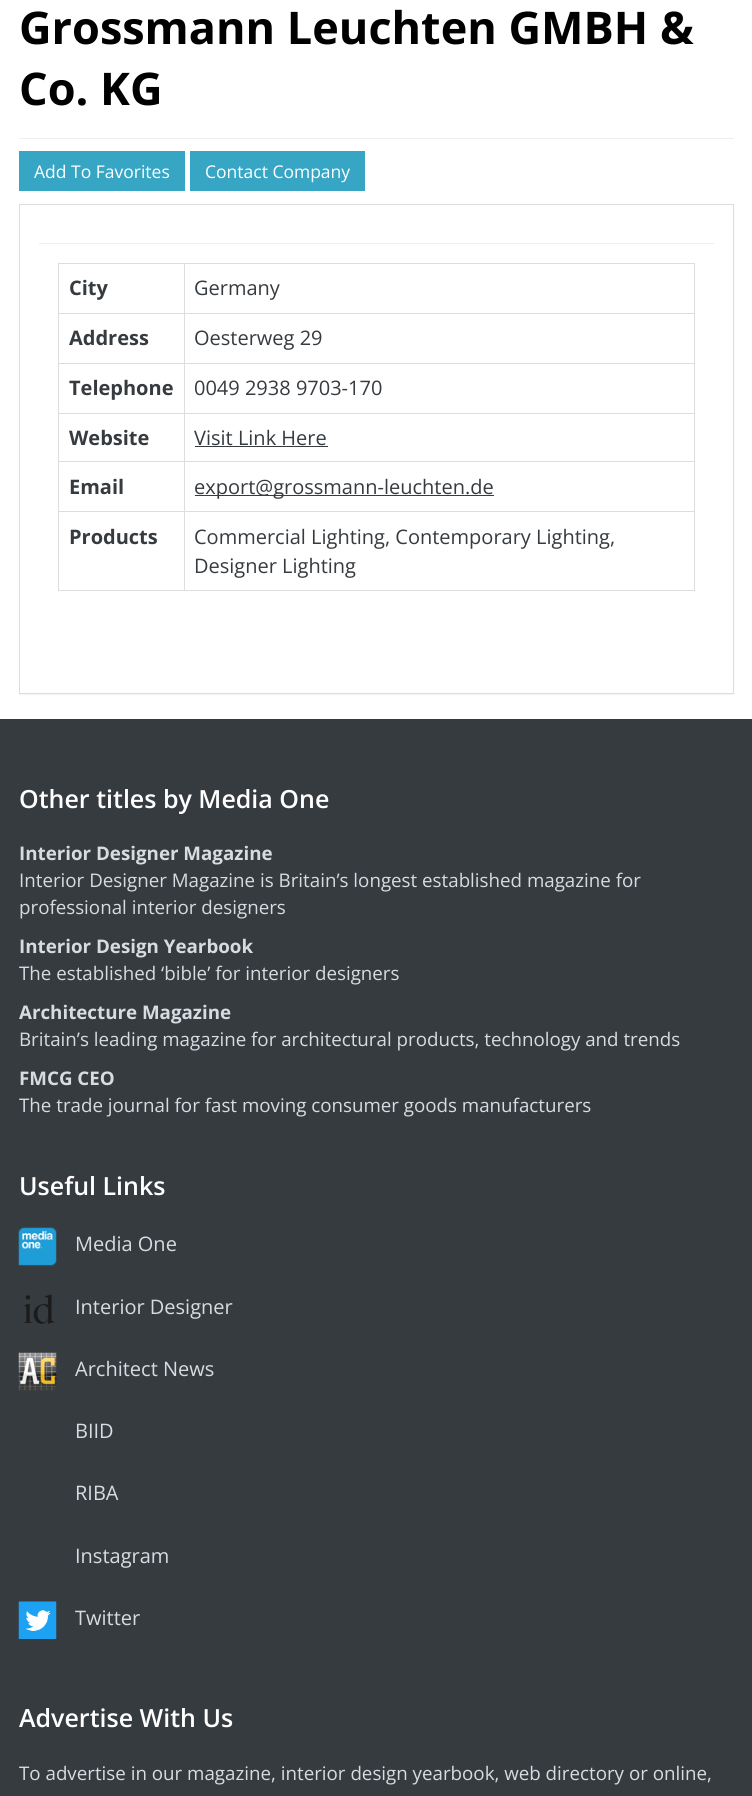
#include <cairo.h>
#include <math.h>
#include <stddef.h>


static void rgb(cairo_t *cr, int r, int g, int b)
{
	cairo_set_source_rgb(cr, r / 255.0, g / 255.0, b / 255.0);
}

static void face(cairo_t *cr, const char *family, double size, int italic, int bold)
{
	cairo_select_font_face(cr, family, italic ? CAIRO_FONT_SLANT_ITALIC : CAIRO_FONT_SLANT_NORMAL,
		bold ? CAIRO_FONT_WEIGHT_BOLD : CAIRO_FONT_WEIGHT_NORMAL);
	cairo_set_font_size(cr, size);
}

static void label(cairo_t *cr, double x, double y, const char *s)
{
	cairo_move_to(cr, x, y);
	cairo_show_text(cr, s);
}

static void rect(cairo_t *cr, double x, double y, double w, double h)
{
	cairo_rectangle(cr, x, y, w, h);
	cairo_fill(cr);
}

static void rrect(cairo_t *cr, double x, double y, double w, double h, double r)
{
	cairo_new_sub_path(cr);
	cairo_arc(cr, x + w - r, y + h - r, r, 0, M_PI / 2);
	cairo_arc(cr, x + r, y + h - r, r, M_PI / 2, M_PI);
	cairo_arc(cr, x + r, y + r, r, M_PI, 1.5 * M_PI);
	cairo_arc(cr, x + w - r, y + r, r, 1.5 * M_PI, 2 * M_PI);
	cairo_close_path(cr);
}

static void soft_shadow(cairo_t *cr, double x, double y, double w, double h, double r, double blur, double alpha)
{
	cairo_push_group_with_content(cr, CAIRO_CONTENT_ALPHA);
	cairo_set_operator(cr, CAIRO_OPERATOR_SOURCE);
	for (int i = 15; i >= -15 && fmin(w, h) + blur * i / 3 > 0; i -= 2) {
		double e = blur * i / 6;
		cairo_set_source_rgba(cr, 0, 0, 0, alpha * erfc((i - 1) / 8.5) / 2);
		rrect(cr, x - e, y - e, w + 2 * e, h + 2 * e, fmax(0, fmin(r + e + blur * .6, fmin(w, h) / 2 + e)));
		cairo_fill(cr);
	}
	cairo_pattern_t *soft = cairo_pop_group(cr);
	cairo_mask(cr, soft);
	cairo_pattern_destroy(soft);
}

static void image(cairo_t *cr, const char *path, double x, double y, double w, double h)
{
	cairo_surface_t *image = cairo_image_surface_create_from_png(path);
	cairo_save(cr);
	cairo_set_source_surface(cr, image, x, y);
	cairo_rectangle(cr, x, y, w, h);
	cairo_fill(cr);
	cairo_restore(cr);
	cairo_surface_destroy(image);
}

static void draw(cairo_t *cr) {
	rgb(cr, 255, 255, 255);
	cairo_paint(cr);
	face(cr, "Open Sans", 45, 0, 1);
	rgb(cr, 0, 0, 0);
	label(cr, 19, 44, "Grossmann Leuchten GMBH &");
	label(cr, 19, 105, "Co. KG");
	rgb(cr, 239, 239, 239);
	rect(cr, 19, 138, 715, 1);
	rgb(cr, 55, 166, 197);
	rect(cr, 19, 151, 166, 40);
	face(cr, "Open Sans", 17.5, 0, 0);
	rgb(cr, 255, 255, 255);
	label(cr, 34, 178, "Add To Favorites");
	rgb(cr, 55, 166, 197);
	rect(cr, 190, 151, 175, 40);
	rgb(cr, 255, 255, 255);
	label(cr, 205, 178, "Contact Company");
	rgb(cr, 0, 0, 0);
	soft_shadow(cr, 19, 205, 715, 490, 0, 0.5, 0.05);
	rgb(cr, 255, 255, 255);
	cairo_rectangle(cr, 19.5, 204.5, 714, 489);
	cairo_fill_preserve(cr);
	rgb(cr, 221, 221, 221);
	cairo_set_line_width(cr, 1);
	cairo_stroke(cr);
	rgb(cr, 238, 238, 238);
	rect(cr, 39, 243, 675, 1);
	rgb(cr, 221, 221, 221);
	rect(cr, 58, 263, 637, 1);
	rect(cr, 694, 263, 1, 328);
	rect(cr, 58, 590, 637, 1);
	rect(cr, 58, 263, 1, 328);
	face(cr, "Open Sans", 20, 0, 1);
	rgb(cr, 54, 59, 64);
	label(cr, 69, 295, "City");
	rgb(cr, 221, 221, 221);
	rect(cr, 184, 313, 511, 1);
	rect(cr, 184, 363, 511, 1);
	rect(cr, 184, 413, 511, 1);
	rect(cr, 184, 461, 511, 1);
	rect(cr, 184, 511, 511, 1);
	rect(cr, 184, 511, 1, 80);
	rect(cr, 58, 511, 127, 1);
	rect(cr, 184, 461, 1, 52);
	rect(cr, 58, 461, 127, 1);
	rect(cr, 184, 413, 1, 50);
	rect(cr, 58, 413, 127, 1);
	rect(cr, 184, 363, 1, 51);
	rect(cr, 58, 363, 127, 1);
	rect(cr, 184, 313, 1, 51);
	rect(cr, 58, 313, 127, 1);
	rect(cr, 184, 263, 1, 51);
	face(cr, "Open Sans", 20, 0, 0);
	rgb(cr, 54, 59, 64);
	label(cr, 194, 295, "Germany");
	face(cr, "Open Sans", 20, 0, 1);
	label(cr, 69, 345, "Address");
	face(cr, "Open Sans", 20, 0, 0);
	label(cr, 194, 345, "Oesterweg 29");
	face(cr, "Open Sans", 20, 0, 1);
	label(cr, 69, 395, "Telephone");
	face(cr, "Open Sans", 20, 0, 0);
	label(cr, 194, 395, "0049 2938 9703-170");
	face(cr, "Open Sans", 20, 0, 1);
	label(cr, 69, 445, "Website");
	face(cr, "Open Sans", 20, 0, 0);
	label(cr, 194, 445, "Visit Link Here");
	rect(cr, 195, 446, 133, 1);
	face(cr, "Open Sans", 20, 0, 1);
	label(cr, 69, 494, "Email");
	rect(cr, 195, 495, 299, 1);
	face(cr, "Open Sans", 20, 0, 0);
	label(cr, 194, 494, "export@grossmann-leuchten.de");
	face(cr, "Open Sans", 20, 0, 1);
	label(cr, 69, 544, "Products");
	face(cr, "Open Sans", 20, 0, 0);
	label(cr, 194, 544, "Commercial Lighting, Contemporary Lighting,");
	label(cr, 194, 573, "Designer Lighting");
	rect(cr, 0, 719, 752, 1077);
	face(cr, "Open Sans SemiBold", 25, 0, 0);
	rgb(cr, 255, 255, 255);
	label(cr, 19, 808, "Other titles by Media One");
	face(cr, "Open Sans", 18.75, 0, 1);
	rgb(cr, 215, 220, 224);
	label(cr, 19, 860, "Interior Designer Magazine");
	face(cr, "Open Sans", 18.75, 0, 0);
	label(cr, 19, 887, "Interior Designer Magazine is Britain’s longest established magazine for");
	label(cr, 19, 914, "professional interior designers");
	face(cr, "Open Sans", 18.75, 0, 1);
	label(cr, 19, 953, "Interior Design Yearbook");
	face(cr, "Open Sans", 18.75, 0, 0);
	label(cr, 19, 980, "The established ‘bible’ for interior designers");
	face(cr, "Open Sans", 18.75, 0, 1);
	label(cr, 19, 1019, "Architecture Magazine");
	face(cr, "Open Sans", 18.75, 0, 0);
	label(cr, 19, 1046, "Britain’s leading magazine for architectural products, technology and trends");
	face(cr, "Open Sans", 18.75, 0, 1);
	label(cr, 19, 1085, "FMCG CEO");
	face(cr, "Open Sans", 18.75, 0, 0);
	label(cr, 19, 1112, "The trade journal for fast moving consumer goods manufacturers");
	face(cr, "Open Sans SemiBold", 25, 0, 0);
	rgb(cr, 255, 255, 255);
	label(cr, 19, 1195, "Useful Links");
	image(cr, "image0.png", 18, 1227, 39, 39);
	face(cr, "Open Sans", 20, 0, 0);
	rgb(cr, 215, 220, 224);
	label(cr, 75, 1251, "Media One");
	image(cr, "image1.png", 23, 1294, 32, 30);
	label(cr, 75, 1314, "Interior Designer");
	image(cr, "image2.png", 18, 1352, 39, 39);
	label(cr, 75, 1376, "Architect News");
	label(cr, 75, 1438, "BIID");
	label(cr, 75, 1500, "RIBA");
	label(cr, 75, 1563, "Instagram");
	image(cr, "image3.png", 18, 1601, 39, 38);
	label(cr, 75, 1625, "Twitter");
	face(cr, "Open Sans SemiBold", 25, 0, 0);
	rgb(cr, 255, 255, 255);
	label(cr, 19, 1727, "Advertise With Us");
	face(cr, "Open Sans", 18.75, 0, 0);
	rgb(cr, 215, 220, 224);
	label(cr, 19, 1780, "To advertise in our magazine, interior design yearbook, web directory or online,");
}

int main(void) {
	cairo_surface_t *surface = cairo_image_surface_create(CAIRO_FORMAT_RGB24, 752, 1796);
	cairo_t *cr = cairo_create(surface);
	cairo_font_options_t *options = cairo_font_options_create();
	cairo_font_options_set_hint_metrics(options, CAIRO_HINT_METRICS_OFF);
	cairo_font_options_set_hint_style(options, CAIRO_HINT_STYLE_NONE);
	cairo_set_font_options(cr, options);
	cairo_set_miter_limit(cr, 4);
	draw(cr);
	cairo_surface_write_to_png(surface, "render.png");
	cairo_font_options_destroy(options);
	cairo_destroy(cr);
	cairo_surface_destroy(surface);
	return 0;
}
